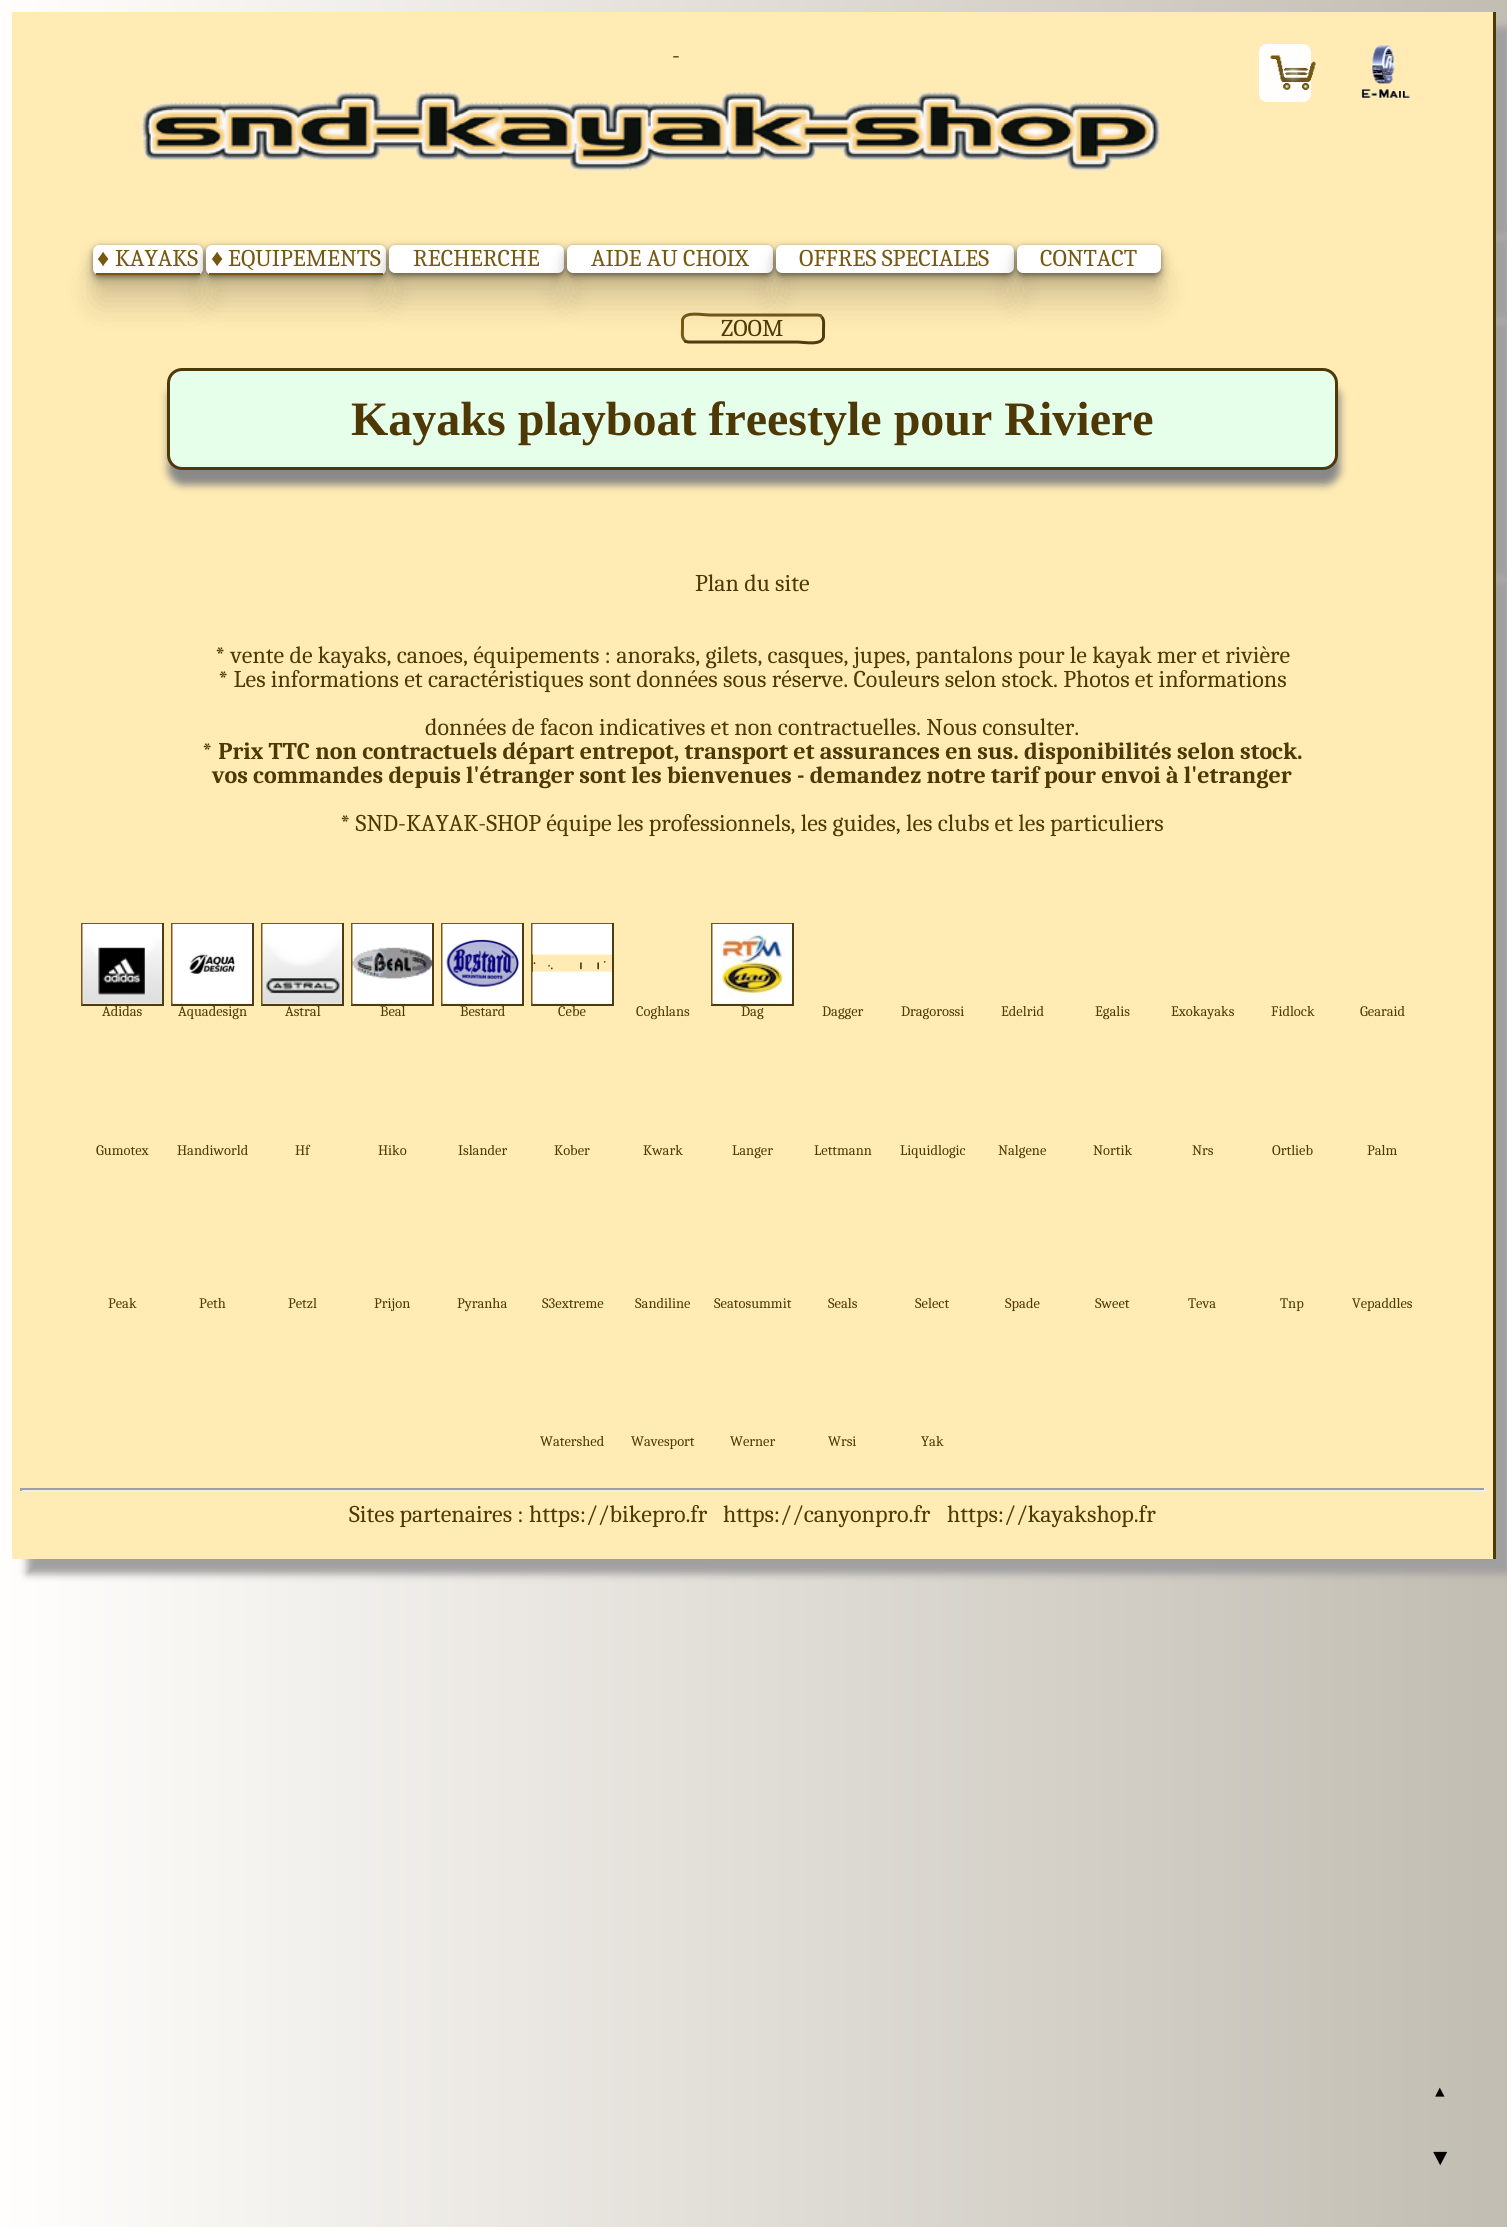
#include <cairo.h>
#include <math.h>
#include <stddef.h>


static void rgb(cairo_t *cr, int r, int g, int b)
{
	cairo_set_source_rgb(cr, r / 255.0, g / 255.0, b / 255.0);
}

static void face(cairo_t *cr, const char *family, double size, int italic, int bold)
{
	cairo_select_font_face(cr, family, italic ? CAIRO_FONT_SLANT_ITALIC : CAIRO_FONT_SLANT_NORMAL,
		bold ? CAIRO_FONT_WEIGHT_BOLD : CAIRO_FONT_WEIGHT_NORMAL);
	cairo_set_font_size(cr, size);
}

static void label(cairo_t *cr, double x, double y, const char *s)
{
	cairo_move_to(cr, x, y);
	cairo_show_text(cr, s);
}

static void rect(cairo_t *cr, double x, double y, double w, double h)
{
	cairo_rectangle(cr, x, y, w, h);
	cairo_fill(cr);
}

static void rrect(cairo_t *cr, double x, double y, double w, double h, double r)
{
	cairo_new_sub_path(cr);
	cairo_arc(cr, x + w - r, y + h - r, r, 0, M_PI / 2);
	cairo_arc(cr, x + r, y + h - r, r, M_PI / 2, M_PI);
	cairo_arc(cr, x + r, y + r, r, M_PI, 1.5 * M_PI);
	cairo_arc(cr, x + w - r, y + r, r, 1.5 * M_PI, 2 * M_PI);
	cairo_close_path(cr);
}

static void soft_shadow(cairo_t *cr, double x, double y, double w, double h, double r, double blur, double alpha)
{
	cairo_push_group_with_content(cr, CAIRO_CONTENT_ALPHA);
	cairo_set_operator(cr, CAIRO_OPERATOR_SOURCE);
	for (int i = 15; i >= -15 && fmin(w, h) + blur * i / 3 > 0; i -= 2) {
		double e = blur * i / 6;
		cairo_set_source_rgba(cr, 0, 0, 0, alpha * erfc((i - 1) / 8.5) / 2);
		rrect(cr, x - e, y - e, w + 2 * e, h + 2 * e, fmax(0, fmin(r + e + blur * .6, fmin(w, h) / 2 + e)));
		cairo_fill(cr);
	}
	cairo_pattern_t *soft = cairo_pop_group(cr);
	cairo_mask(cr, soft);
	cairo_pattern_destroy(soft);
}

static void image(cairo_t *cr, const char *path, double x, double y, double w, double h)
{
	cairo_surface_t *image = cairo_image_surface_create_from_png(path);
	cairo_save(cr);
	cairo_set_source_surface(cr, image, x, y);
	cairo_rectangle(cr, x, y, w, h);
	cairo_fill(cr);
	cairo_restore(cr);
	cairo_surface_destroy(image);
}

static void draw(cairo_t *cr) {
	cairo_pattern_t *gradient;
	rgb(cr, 255, 255, 255);
	cairo_paint(cr);
	gradient = cairo_pattern_create_linear(0, 785, 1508, 785);
	cairo_pattern_add_color_stop_rgba(gradient, 0, 1, 0.996, 0.988, 1);
	cairo_pattern_add_color_stop_rgba(gradient, 1, 0.761, 0.741, 0.698, 1);
	cairo_set_source(cr, gradient);
	cairo_pattern_destroy(gradient);
	rect(cr, 0, 0, 1507, 2227);
	rgb(cr, 160, 160, 160);
	soft_shadow(cr, 27, 27, 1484, 210, 0, 4, 1);
	rgb(cr, 255, 235, 179);
	rect(cr, 12, 12, 1481, 210);
	rgb(cr, 78, 56, 5);
	rect(cr, 1493, 12, 3, 210);
	face(cr, "Caladea", 24, 0, 0);
	label(cr, 672, 63, "-");
	rgb(cr, 255, 254, 252);
	rrect(cr, 1259, 44, 52, 58, 8);
	cairo_fill(cr);
	image(cr, "image0.png", 1270, 55, 46, 35);
	image(cr, "image1.png", 1361, 45, 49, 53);
	image(cr, "image2.png", 141, 92, 1019, 79);
	rgb(cr, 160, 160, 160);
	soft_shadow(cr, 27, 237, 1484, 84, 0, 4, 1);
	rgb(cr, 255, 235, 179);
	rect(cr, 12, 222, 1481, 84);
	rgb(cr, 78, 56, 5);
	rect(cr, 1493, 222, 3, 84);
	rgb(cr, 160, 160, 160);
	soft_shadow(cr, 27, 321, 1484, 258, 0, 4, 1);
	rgb(cr, 255, 235, 179);
	rect(cr, 12, 306, 1481, 258);
	rgb(cr, 0, 0, 0);
	soft_shadow(cr, 93, 275, 110, 30, 6, 15, 0.15);
	soft_shadow(cr, 93, 252, 110, 30, 6, 7.5, 0.2);
	soft_shadow(cr, 93, 249, 110, 30, 6, 4, 0.2);
	soft_shadow(cr, 93, 246, 110, 30, 6, 2, 0.3);
	rgb(cr, 255, 255, 255);
	rrect(cr, 93, 245, 110, 30, 6);
	cairo_fill(cr);
	rgb(cr, 117, 89, 16);
	rect(cr, 96, 273, 104, 2);
	face(cr, "Liberation Serif", 24, 0, 0);
	label(cr, 97, 266, "♦");
	face(cr, "Caladea", 24, 0, 0);
	label(cr, 115, 266, "KAYAKS");
	rgb(cr, 0, 0, 0);
	soft_shadow(cr, 206, 275, 180, 30, 6, 15, 0.15);
	soft_shadow(cr, 206, 252, 180, 30, 6, 7.5, 0.2);
	soft_shadow(cr, 206, 249, 180, 30, 6, 4, 0.2);
	soft_shadow(cr, 206, 246, 180, 30, 6, 2, 0.3);
	rgb(cr, 255, 255, 255);
	rrect(cr, 206, 245, 180, 30, 6);
	cairo_fill(cr);
	rgb(cr, 117, 89, 16);
	rect(cr, 209, 273, 174, 2);
	face(cr, "Liberation Serif", 24, 0, 0);
	label(cr, 211, 266, "♦");
	face(cr, "Caladea", 24, 0, 0);
	label(cr, 228, 266, "EQUIPEMENTS");
	rgb(cr, 0, 0, 0);
	soft_shadow(cr, 389, 275, 175, 28, 6, 15, 0.15);
	soft_shadow(cr, 389, 252, 175, 29, 6, 7.5, 0.2);
	soft_shadow(cr, 389, 249, 175, 29, 6, 4, 0.2);
	soft_shadow(cr, 389, 246, 175, 29, 6, 2, 0.3);
	rgb(cr, 255, 255, 255);
	rrect(cr, 389, 245, 175, 28, 6);
	cairo_fill(cr);
	rgb(cr, 117, 89, 16);
	label(cr, 413, 266, "RECHERCHE");
	cairo_new_path(cr);
	cairo_move_to(cr, 821.5, 317);
	cairo_curve_to(cr, 824.5, 319.5, 823.5, 325, 823.5, 328.5);
	cairo_line_to(cr, 823.5, 337);
	cairo_curve_to(cr, 821.5, 346, 804.5, 342, 796, 342);
	cairo_line_to(cr, 688.5, 342);
	cairo_line_to(cr, 685.5, 341.5);
	cairo_line_to(cr, 684.5, 340);
	rgb(cr, 77, 59, 17);
	cairo_set_line_width(cr, 3);
	cairo_stroke(cr);
	cairo_new_path(cr);
	cairo_move_to(cr, 684.5, 340);
	cairo_curve_to(cr, 681.5, 337.5, 682.5, 332, 682.5, 328.5);
	cairo_line_to(cr, 682.5, 320);
	cairo_curve_to(cr, 684.5, 311, 701.5, 315, 710, 315);
	cairo_line_to(cr, 817.5, 315);
	cairo_line_to(cr, 820.5, 315.5);
	cairo_line_to(cr, 821.5, 317);
	rgb(cr, 116, 89, 25);
	cairo_stroke(cr);
	rgb(cr, 0, 0, 0);
	soft_shadow(cr, 567, 275, 206, 28, 6, 15, 0.15);
	soft_shadow(cr, 567, 252, 206, 29, 6, 7.5, 0.2);
	soft_shadow(cr, 567, 249, 206, 29, 6, 4, 0.2);
	soft_shadow(cr, 567, 246, 206, 29, 6, 2, 0.3);
	rgb(cr, 255, 255, 255);
	rrect(cr, 567, 245, 206, 28, 6);
	cairo_fill(cr);
	rgb(cr, 117, 89, 16);
	label(cr, 591, 266, "AIDE AU CHOIX");
	rgb(cr, 0, 0, 0);
	soft_shadow(cr, 776, 275, 238, 28, 6, 15, 0.15);
	soft_shadow(cr, 776, 252, 238, 29, 6, 7.5, 0.2);
	soft_shadow(cr, 776, 249, 238, 29, 6, 4, 0.2);
	soft_shadow(cr, 776, 246, 238, 29, 6, 2, 0.3);
	rgb(cr, 255, 255, 255);
	rrect(cr, 776, 245, 238, 28, 6);
	cairo_fill(cr);
	rgb(cr, 117, 89, 16);
	label(cr, 799, 266, "OFFRES SPECIALES");
	rgb(cr, 0, 0, 0);
	soft_shadow(cr, 1017, 275, 144, 28, 6, 15, 0.15);
	soft_shadow(cr, 1017, 252, 144, 29, 6, 7.5, 0.2);
	soft_shadow(cr, 1017, 249, 144, 29, 6, 4, 0.2);
	soft_shadow(cr, 1017, 246, 144, 29, 6, 2, 0.3);
	rgb(cr, 255, 255, 255);
	rrect(cr, 1017, 245, 144, 28, 6);
	cairo_fill(cr);
	rgb(cr, 117, 89, 16);
	label(cr, 1040, 266, "CONTACT");
	rgb(cr, 78, 56, 5);
	rect(cr, 1493, 306, 3, 258);
	label(cr, 721, 336, "ZOOM");
	rgb(cr, 136, 136, 136);
	soft_shadow(cr, 168, 383, 1172, 102, 15, 4, 1);
	rgb(cr, 230, 255, 234);
	rrect(cr, 168.5, 369.5, 1168, 99, 13.5);
	cairo_fill_preserve(cr);
	rgb(cr, 78, 56, 5);
	cairo_stroke(cr);
	face(cr, "Liberation Serif", 48, 0, 1);
	label(cr, 351, 435, "Kayaks playboat freestyle pour Riviere");
	rgb(cr, 160, 160, 160);
	soft_shadow(cr, 27, 579, 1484, 995, 0, 4, 1);
	rgb(cr, 255, 235, 179);
	rect(cr, 12, 564, 1481, 995);
	rgb(cr, 78, 56, 5);
	rect(cr, 1493, 564, 3, 995);
	face(cr, "Caladea", 24, 0, 0);
	label(cr, 695, 591, "Plan du site");
	label(cr, 215, 663, "* vente de kayaks, canoes, équipements : anoraks, gilets, casques, jupes, pantalons pour le kayak mer et rivière");
	label(cr, 218, 687, "* Les informations et caractéristiques sont données sous réserve. Couleurs selon stock. Photos et informations");
	label(cr, 425, 735, "données de facon indicatives et non contractuelles. Nous consulter.");
	face(cr, "Caladea", 24, 0, 1);
	label(cr, 202, 759, "* Prix TTC non contractuels départ entrepot, transport et assurances en sus. disponibilités selon stock.");
	label(cr, 212, 783, "vos commandes depuis l'étranger sont les bienvenues - demandez notre tarif pour envoi à l'etranger");
	face(cr, "Caladea", 24, 0, 0);
	label(cr, 340, 831, "* SND-KAYAK-SHOP équipe les professionnels, les guides, les clubs et les particuliers");
	rgb(cr, 116, 89, 25);
	rect(cr, 81, 923, 83, 1);
	rgb(cr, 77, 59, 17);
	rect(cr, 162, 923, 2, 82);
	rect(cr, 81, 1004, 83, 2);
	rgb(cr, 116, 89, 25);
	rect(cr, 81, 923, 2, 82);
	image(cr, "image3.png", 82, 924, 80, 80);
	face(cr, "Caladea", 14.5, 0, 0);
	rgb(cr, 78, 56, 5);
	label(cr, 102, 1016, "Adidas");
	rgb(cr, 116, 89, 25);
	rect(cr, 171, 923, 83, 1);
	rgb(cr, 77, 59, 17);
	rect(cr, 252, 923, 2, 82);
	rect(cr, 171, 1004, 83, 2);
	rgb(cr, 116, 89, 25);
	rect(cr, 171, 923, 2, 82);
	image(cr, "image4.png", 172, 924, 80, 80);
	rgb(cr, 78, 56, 5);
	label(cr, 178, 1016, "Aquadesign");
	rgb(cr, 116, 89, 25);
	rect(cr, 261, 923, 83, 1);
	rgb(cr, 77, 59, 17);
	rect(cr, 342, 923, 2, 82);
	rect(cr, 261, 1004, 83, 2);
	rgb(cr, 116, 89, 25);
	rect(cr, 261, 923, 2, 82);
	image(cr, "image5.png", 262, 924, 80, 80);
	rgb(cr, 78, 56, 5);
	label(cr, 285, 1016, "Astral");
	rgb(cr, 116, 89, 25);
	rect(cr, 351, 923, 83, 1);
	rgb(cr, 77, 59, 17);
	rect(cr, 432, 923, 2, 82);
	rect(cr, 351, 1004, 83, 2);
	rgb(cr, 116, 89, 25);
	rect(cr, 351, 923, 2, 82);
	image(cr, "image6.png", 352, 924, 80, 80);
	rgb(cr, 78, 56, 5);
	label(cr, 380, 1016, "Beal");
	rgb(cr, 116, 89, 25);
	rect(cr, 441, 923, 83, 1);
	rgb(cr, 77, 59, 17);
	rect(cr, 522, 923, 2, 82);
	rect(cr, 441, 1004, 83, 2);
	rgb(cr, 116, 89, 25);
	rect(cr, 441, 923, 2, 82);
	image(cr, "image7.png", 442, 924, 80, 80);
	rgb(cr, 78, 56, 5);
	label(cr, 460, 1016, "Bestard");
	rgb(cr, 116, 89, 25);
	rect(cr, 531, 923, 83, 1);
	rgb(cr, 77, 59, 17);
	rect(cr, 612, 923, 2, 82);
	rect(cr, 531, 1004, 83, 2);
	rgb(cr, 116, 89, 25);
	rect(cr, 531, 923, 2, 82);
	image(cr, "image8.png", 532, 924, 80, 80);
	rgb(cr, 78, 56, 5);
	label(cr, 558, 1016, "Cebe");
	label(cr, 636, 1016, "Coghlans");
	rgb(cr, 116, 89, 25);
	rect(cr, 711, 923, 83, 1);
	rgb(cr, 77, 59, 17);
	rect(cr, 792, 923, 2, 82);
	rect(cr, 711, 1004, 83, 2);
	rgb(cr, 116, 89, 25);
	rect(cr, 711, 923, 2, 82);
	image(cr, "image9.png", 712, 924, 80, 80);
	rgb(cr, 78, 56, 5);
	label(cr, 741, 1016, "Dag");
	label(cr, 822, 1016, "Dagger");
	label(cr, 901, 1016, "Dragorossi");
	label(cr, 1001, 1016, "Edelrid");
	label(cr, 1095, 1016, "Egalis");
	label(cr, 1171, 1016, "Exokayaks");
	label(cr, 1271, 1016, "Fidlock");
	label(cr, 1360, 1016, "Gearaid");
	label(cr, 96, 1155, "Gumotex");
	label(cr, 177, 1155, "Handiworld");
	label(cr, 295, 1155, "Hf");
	label(cr, 378, 1155, "Hiko");
	label(cr, 458, 1155, "Islander");
	label(cr, 554, 1155, "Kober");
	label(cr, 643, 1155, "Kwark");
	label(cr, 732, 1155, "Langer");
	label(cr, 814, 1155, "Lettmann");
	label(cr, 900, 1155, "Liquidlogic");
	label(cr, 998, 1155, "Nalgene");
	label(cr, 1093, 1155, "Nortik");
	label(cr, 1192, 1155, "Nrs");
	label(cr, 1272, 1155, "Ortlieb");
	label(cr, 1367, 1155, "Palm");
	label(cr, 108, 1308, "Peak");
	label(cr, 199, 1308, "Peth");
	label(cr, 288, 1308, "Petzl");
	label(cr, 374, 1308, "Prijon");
	label(cr, 457, 1308, "Pyranha");
	label(cr, 542, 1308, "S3extreme");
	label(cr, 635, 1308, "Sandiline");
	label(cr, 714, 1308, "Seatosummit");
	label(cr, 828, 1308, "Seals");
	label(cr, 915, 1308, "Select");
	label(cr, 1005, 1308, "Spade");
	label(cr, 1095, 1308, "Sweet");
	label(cr, 1188, 1308, "Teva");
	label(cr, 1280, 1308, "Tnp");
	label(cr, 1352, 1308, "Vepaddles");
	label(cr, 540, 1446, "Watershed");
	label(cr, 631, 1446, "Wavesport");
	label(cr, 730, 1446, "Werner");
	label(cr, 828, 1446, "Wrsi");
	label(cr, 921, 1446, "Yak");
	rgb(cr, 159, 159, 159);
	rect(cr, 20, 1488, 1465, 2);
	rgb(cr, 238, 238, 238);
	rect(cr, 1484, 1488, 2, 3);
	rect(cr, 20, 1490, 1465, 2);
	rgb(cr, 159, 159, 159);
	rect(cr, 20, 1488, 2, 3);
	face(cr, "Caladea", 24, 0, 0);
	rgb(cr, 78, 56, 5);
	label(cr, 349, 1522, "Sites partenaires : https://bikepro.fr");
	label(cr, 723, 1522, "https://canyonpro.fr");
	label(cr, 947, 1522, "https://kayakshop.fr");
	face(cr, "Liberation Mono", 16, 0, 0);
	rgb(cr, 0, 0, 0);
	label(cr, 1435, 2097, "▲");
	face(cr, "Liberation Mono", 24, 0, 0);
	label(cr, 1433, 2165, "▼");
}

int main(void) {
	cairo_surface_t *surface = cairo_image_surface_create(CAIRO_FORMAT_RGB24, 1507, 2227);
	cairo_t *cr = cairo_create(surface);
	cairo_font_options_t *options = cairo_font_options_create();
	cairo_font_options_set_hint_metrics(options, CAIRO_HINT_METRICS_OFF);
	cairo_font_options_set_hint_style(options, CAIRO_HINT_STYLE_NONE);
	cairo_set_font_options(cr, options);
	cairo_set_miter_limit(cr, 4);
	draw(cr);
	cairo_surface_write_to_png(surface, "render.png");
	cairo_font_options_destroy(options);
	cairo_destroy(cr);
	cairo_surface_destroy(surface);
	return 0;
}
